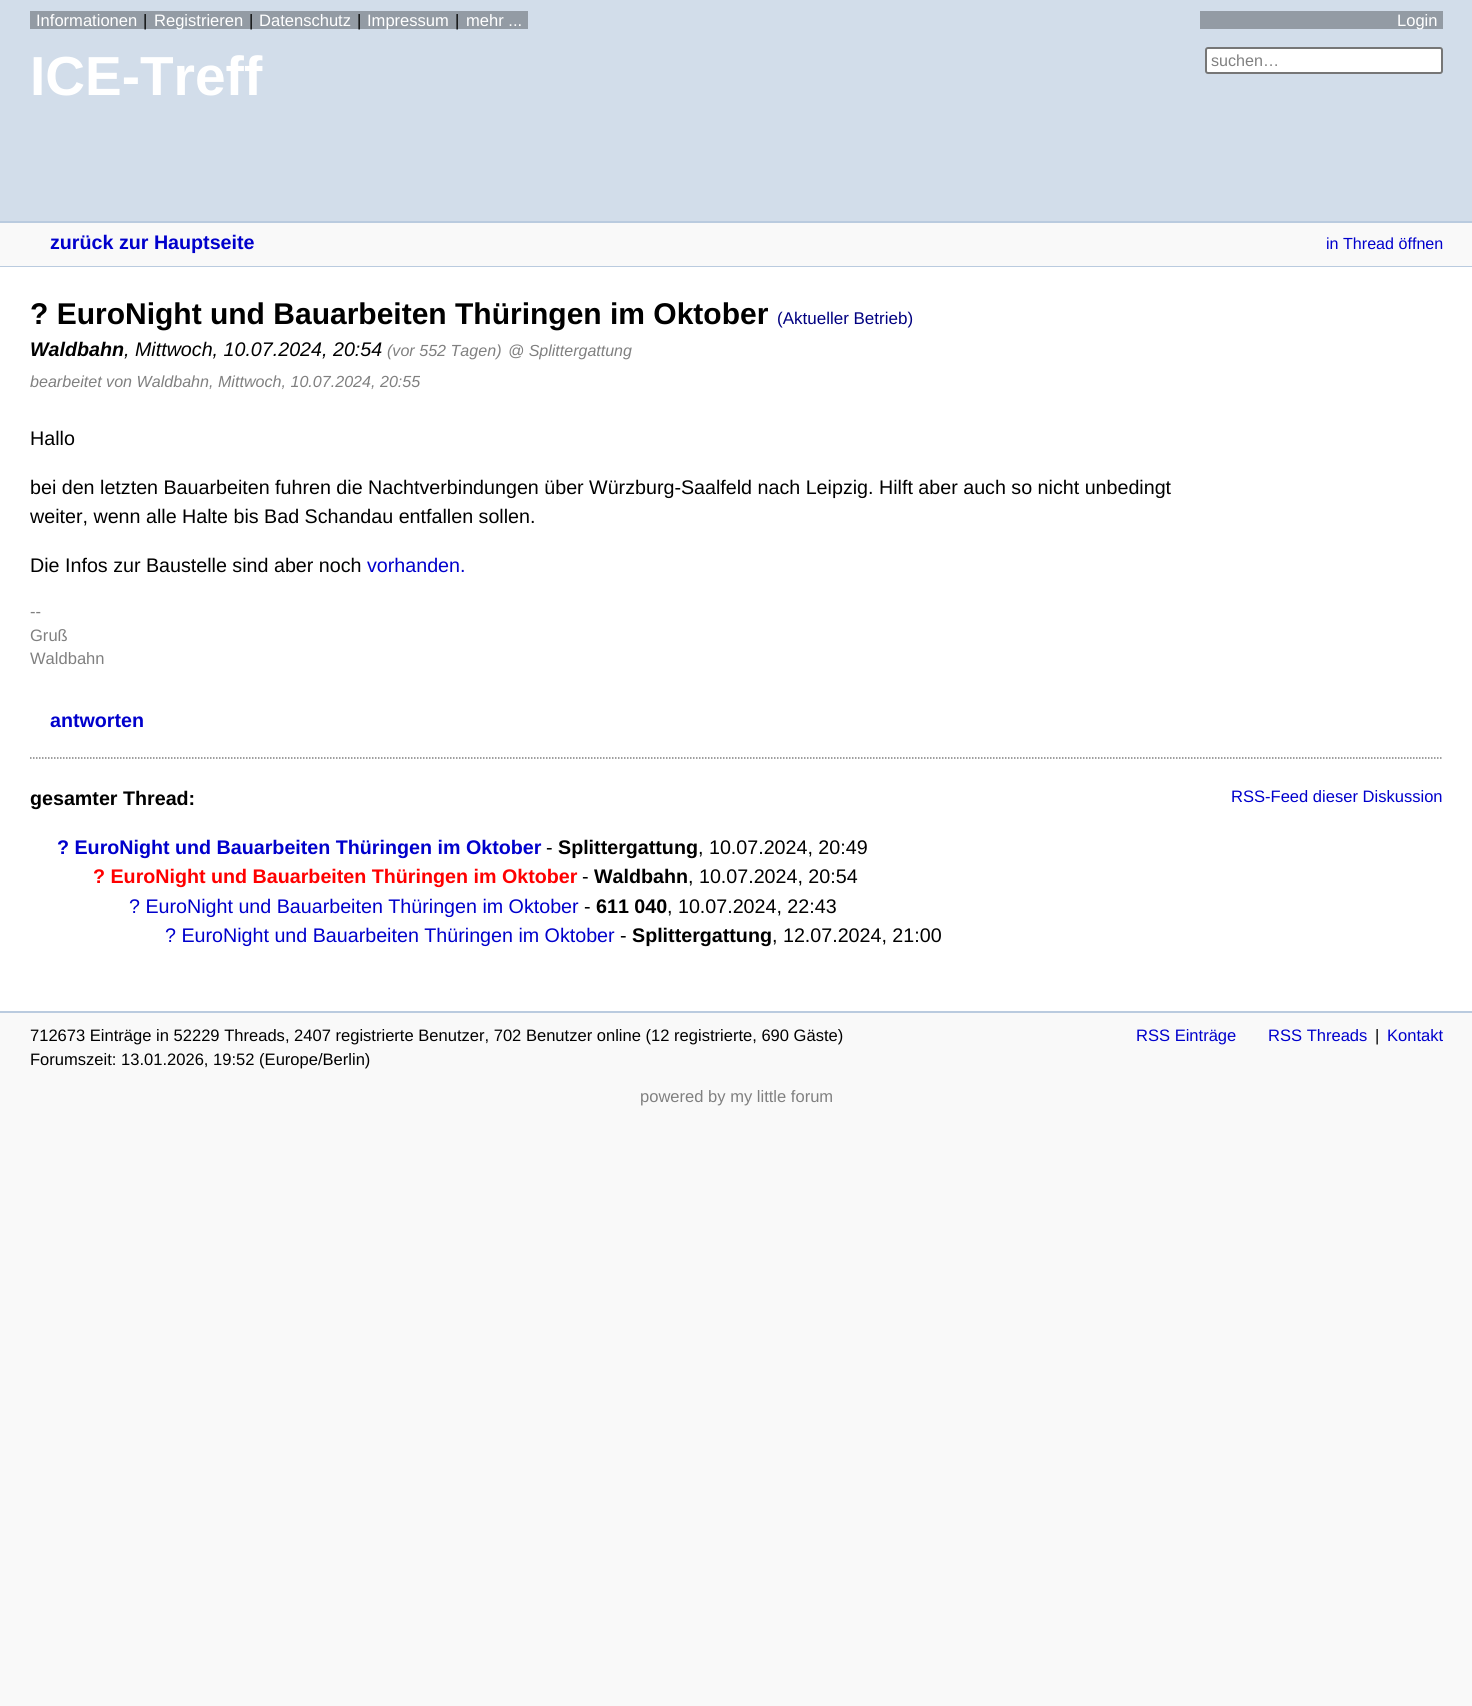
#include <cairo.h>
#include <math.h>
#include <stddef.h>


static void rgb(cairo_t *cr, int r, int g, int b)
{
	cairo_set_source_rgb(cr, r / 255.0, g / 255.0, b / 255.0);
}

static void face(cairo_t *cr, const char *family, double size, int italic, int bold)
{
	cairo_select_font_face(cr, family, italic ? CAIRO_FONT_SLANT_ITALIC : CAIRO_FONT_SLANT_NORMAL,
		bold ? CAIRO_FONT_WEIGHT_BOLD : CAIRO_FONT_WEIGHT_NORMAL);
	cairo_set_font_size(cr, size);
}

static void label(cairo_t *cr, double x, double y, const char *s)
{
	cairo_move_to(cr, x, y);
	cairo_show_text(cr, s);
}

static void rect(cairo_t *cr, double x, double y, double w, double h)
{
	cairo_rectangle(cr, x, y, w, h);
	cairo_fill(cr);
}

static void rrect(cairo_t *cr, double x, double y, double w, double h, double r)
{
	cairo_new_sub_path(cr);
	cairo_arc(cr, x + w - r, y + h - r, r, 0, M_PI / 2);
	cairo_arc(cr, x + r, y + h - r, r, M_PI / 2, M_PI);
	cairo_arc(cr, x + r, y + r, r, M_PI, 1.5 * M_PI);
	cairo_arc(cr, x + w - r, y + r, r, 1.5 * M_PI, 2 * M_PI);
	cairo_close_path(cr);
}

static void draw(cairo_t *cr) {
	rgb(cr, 249, 249, 249);
	cairo_paint(cr);
	rgb(cr, 210, 221, 234);
	rect(cr, 0, 0, 1472, 221);
	rgb(cr, 147, 155, 164);
	rect(cr, 30, 11, 498, 18);
	face(cr, "Liberation Sans", 16.55, 0, 0);
	rgb(cr, 255, 255, 255);
	label(cr, 36, 26, "Informationen");
	rgb(cr, 0, 0, 0);
	label(cr, 143, 26, "|");
	rgb(cr, 255, 255, 255);
	label(cr, 154, 26, "Registrieren");
	rgb(cr, 0, 0, 0);
	label(cr, 249, 26, "|");
	rgb(cr, 255, 255, 255);
	label(cr, 259, 26, "Datenschutz");
	rgb(cr, 0, 0, 0);
	label(cr, 357, 26, "|");
	rgb(cr, 255, 255, 255);
	label(cr, 367, 26, "Impressum");
	rgb(cr, 0, 0, 0);
	label(cr, 455, 26, "|");
	rgb(cr, 255, 255, 255);
	label(cr, 466, 26, "mehr ...");
	face(cr, "Liberation Sans", 55, 0, 1);
	label(cr, 30, 95, "ICE-Treff");
	rgb(cr, 147, 155, 164);
	rect(cr, 1200, 11, 243, 18);
	face(cr, "Liberation Sans", 16.55, 0, 0);
	rgb(cr, 255, 255, 255);
	label(cr, 1397, 26, "Login");
	rrect(cr, 1206, 48, 236, 25, 2);
	cairo_fill_preserve(cr);
	rgb(cr, 118, 118, 118);
	cairo_stroke(cr);
	face(cr, "Liberation Sans", 16.1, 0, 0);
	rgb(cr, 128, 128, 128);
	label(cr, 1211, 66, "suchen…");
	rgb(cr, 186, 203, 223);
	rect(cr, 0, 221, 1472, 2);
	rect(cr, 0, 266, 1472, 1);
	face(cr, "Liberation Sans", 19.68, 0, 1);
	rgb(cr, 0, 0, 204);
	label(cr, 50, 249, "zurück zur Hauptseite");
	face(cr, "Liberation Sans", 16.1, 0, 0);
	label(cr, 1326, 249, "in Thread öffnen");
	rgb(cr, 255, 255, 255);
	rect(cr, 0, 267, 1472, 744);
	face(cr, "Liberation Sans", 30, 0, 1);
	rgb(cr, 0, 0, 0);
	label(cr, 30, 324, "? EuroNight und Bauarbeiten Thüringen im Oktober");
	face(cr, "Liberation Sans", 17, 0, 0);
	rgb(cr, 0, 0, 128);
	label(cr, 777, 324, "(Aktueller Betrieb)");
	face(cr, "Liberation Sans", 19.68, 1, 1);
	rgb(cr, 0, 0, 0);
	label(cr, 30, 356, "Waldbahn");
	face(cr, "Liberation Sans", 19.68, 1, 0);
	label(cr, 124, 356, ", Mittwoch, 10.07.2024, 20:54");
	face(cr, "Liberation Sans", 16.1, 1, 0);
	rgb(cr, 128, 128, 128);
	label(cr, 387, 356, "(vor 552 Tagen)");
	face(cr, "Liberation Sans", 16, 1, 0);
	label(cr, 508, 356, "@ Splittergattung");
	face(cr, "Liberation Sans", 16.1, 1, 0);
	label(cr, 30, 387, "bearbeitet von Waldbahn, Mittwoch, 10.07.2024, 20:55");
	face(cr, "Liberation Sans", 19.68, 0, 0);
	rgb(cr, 0, 0, 0);
	label(cr, 30, 445, "Hallo");
	label(cr, 30, 494, "bei den letzten Bauarbeiten fuhren die Nachtverbindungen über Würzburg-Saalfeld nach Leipzig. Hilft aber auch so nicht unbedingt");
	label(cr, 30, 523, "weiter, wenn alle Halte bis Bad Schandau entfallen sollen.");
	label(cr, 30, 572, "Die Infos zur Baustelle sind aber noch");
	rgb(cr, 0, 0, 204);
	label(cr, 367, 572, "vorhanden.");
	face(cr, "Liberation Sans", 16.55, 0, 0);
	rgb(cr, 128, 128, 128);
	label(cr, 30, 617, "--");
	label(cr, 30, 641, "Gruß");
	label(cr, 30, 664, "Waldbahn");
	face(cr, "Liberation Sans", 19.68, 0, 1);
	rgb(cr, 0, 0, 204);
	label(cr, 50, 727, "antworten");
	cairo_new_path(cr);
	cairo_move_to(cr, 30, 758);
	cairo_line_to(cr, 1443, 758);
	rgb(cr, 128, 128, 128);
	cairo_set_line_width(cr, 1.5);
	cairo_set_dash(cr, (double[]){1.5, 1.5}, 2, 0);
	cairo_stroke(cr);
	rgb(cr, 0, 0, 0);
	label(cr, 30, 805, "gesamter Thread:");
	face(cr, "Liberation Sans", 16.55, 0, 0);
	rgb(cr, 0, 0, 204);
	label(cr, 1231, 802, "RSS-Feed dieser Diskussion");
	face(cr, "Liberation Sans", 19.68, 0, 1);
	label(cr, 57, 854, "? EuroNight und Bauarbeiten Thüringen im Oktober");
	face(cr, "Liberation Sans", 19.68, 0, 0);
	rgb(cr, 0, 0, 0);
	label(cr, 546, 854, "-");
	face(cr, "Liberation Sans", 19.68, 0, 1);
	label(cr, 558, 854, "Splittergattung");
	face(cr, "Liberation Sans", 19.68, 0, 0);
	label(cr, 698, 854, ", 10.07.2024, 20:49");
	face(cr, "Liberation Sans", 19.68, 0, 1);
	rgb(cr, 255, 0, 0);
	label(cr, 93, 883, "? EuroNight und Bauarbeiten Thüringen im Oktober");
	face(cr, "Liberation Sans", 19.68, 0, 0);
	rgb(cr, 0, 0, 0);
	label(cr, 582, 883, "-");
	face(cr, "Liberation Sans", 19.68, 0, 1);
	label(cr, 594, 883, "Waldbahn");
	face(cr, "Liberation Sans", 19.68, 0, 0);
	label(cr, 688, 883, ", 10.07.2024, 20:54");
	rgb(cr, 0, 0, 204);
	label(cr, 129, 913, "? EuroNight und Bauarbeiten Thüringen im Oktober");
	rgb(cr, 0, 0, 0);
	label(cr, 584, 913, "-");
	face(cr, "Liberation Sans", 19.68, 0, 1);
	label(cr, 596, 913, "611 040");
	face(cr, "Liberation Sans", 19.68, 0, 0);
	label(cr, 667, 913, ", 10.07.2024, 22:43");
	rgb(cr, 0, 0, 204);
	label(cr, 165, 942, "? EuroNight und Bauarbeiten Thüringen im Oktober");
	rgb(cr, 0, 0, 0);
	label(cr, 620, 942, "-");
	face(cr, "Liberation Sans", 19.68, 0, 1);
	label(cr, 632, 942, "Splittergattung");
	face(cr, "Liberation Sans", 19.68, 0, 0);
	label(cr, 772, 942, ", 12.07.2024, 21:00");
	rgb(cr, 186, 203, 223);
	rect(cr, 0, 1011, 1472, 2);
	face(cr, "Liberation Sans", 16.55, 0, 0);
	rgb(cr, 0, 0, 0);
	label(cr, 30, 1041, "712673 Einträge in 52229 Threads, 2407 registrierte Benutzer, 702 Benutzer online (12 registrierte, 690 Gäste)");
	label(cr, 30, 1065, "Forumszeit: 13.01.2026, 19:52 (Europe/Berlin)");
	rgb(cr, 0, 0, 204);
	label(cr, 1136, 1041, "RSS Einträge");
	label(cr, 1268, 1041, "RSS Threads");
	rgb(cr, 0, 0, 0);
	label(cr, 1375, 1041, "|");
	rgb(cr, 0, 0, 204);
	label(cr, 1387, 1041, "Kontakt");
	rgb(cr, 128, 128, 128);
	label(cr, 640, 1102, "powered by my little forum");
}

int main(void) {
	cairo_surface_t *surface = cairo_image_surface_create(CAIRO_FORMAT_RGB24, 1472, 1706);
	cairo_t *cr = cairo_create(surface);
	cairo_font_options_t *options = cairo_font_options_create();
	cairo_font_options_set_hint_metrics(options, CAIRO_HINT_METRICS_OFF);
	cairo_font_options_set_hint_style(options, CAIRO_HINT_STYLE_NONE);
	cairo_set_font_options(cr, options);
	cairo_set_miter_limit(cr, 4);
	draw(cr);
	cairo_surface_write_to_png(surface, "render.png");
	cairo_font_options_destroy(options);
	cairo_destroy(cr);
	cairo_surface_destroy(surface);
	return 0;
}
